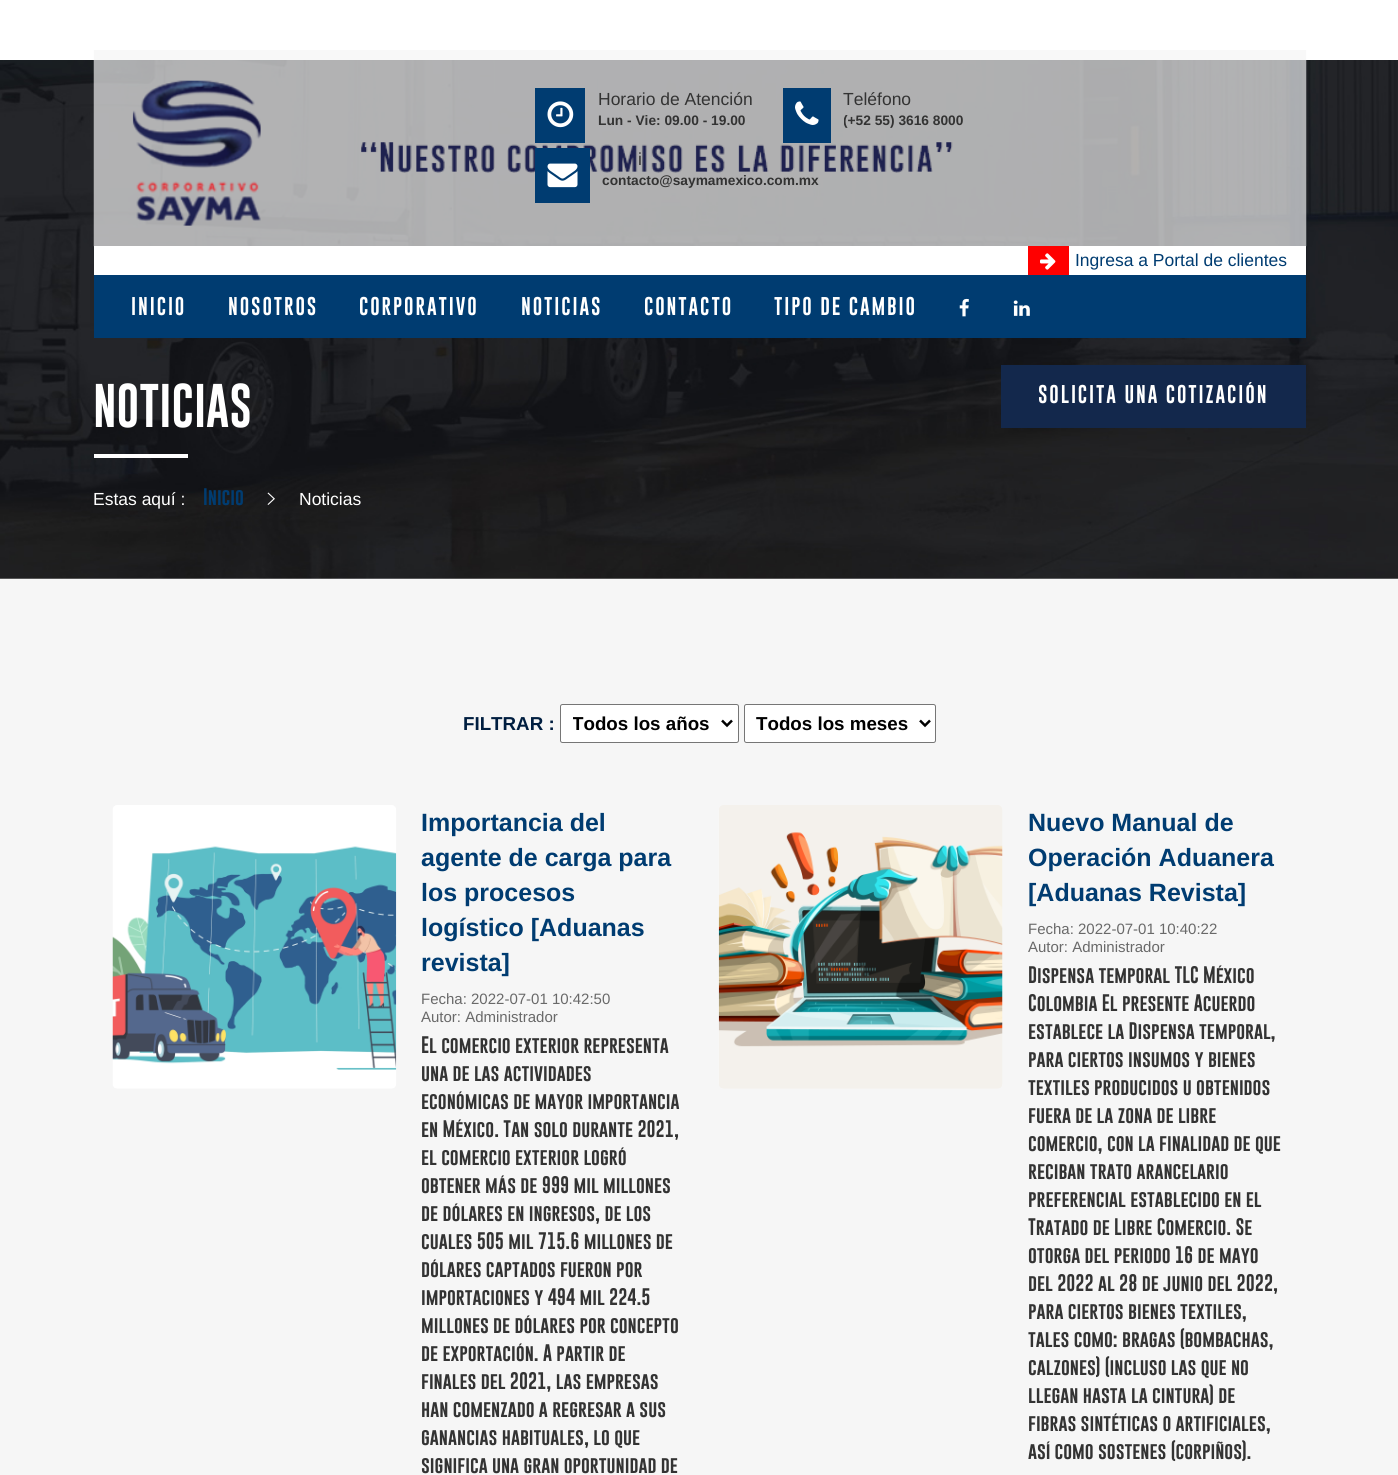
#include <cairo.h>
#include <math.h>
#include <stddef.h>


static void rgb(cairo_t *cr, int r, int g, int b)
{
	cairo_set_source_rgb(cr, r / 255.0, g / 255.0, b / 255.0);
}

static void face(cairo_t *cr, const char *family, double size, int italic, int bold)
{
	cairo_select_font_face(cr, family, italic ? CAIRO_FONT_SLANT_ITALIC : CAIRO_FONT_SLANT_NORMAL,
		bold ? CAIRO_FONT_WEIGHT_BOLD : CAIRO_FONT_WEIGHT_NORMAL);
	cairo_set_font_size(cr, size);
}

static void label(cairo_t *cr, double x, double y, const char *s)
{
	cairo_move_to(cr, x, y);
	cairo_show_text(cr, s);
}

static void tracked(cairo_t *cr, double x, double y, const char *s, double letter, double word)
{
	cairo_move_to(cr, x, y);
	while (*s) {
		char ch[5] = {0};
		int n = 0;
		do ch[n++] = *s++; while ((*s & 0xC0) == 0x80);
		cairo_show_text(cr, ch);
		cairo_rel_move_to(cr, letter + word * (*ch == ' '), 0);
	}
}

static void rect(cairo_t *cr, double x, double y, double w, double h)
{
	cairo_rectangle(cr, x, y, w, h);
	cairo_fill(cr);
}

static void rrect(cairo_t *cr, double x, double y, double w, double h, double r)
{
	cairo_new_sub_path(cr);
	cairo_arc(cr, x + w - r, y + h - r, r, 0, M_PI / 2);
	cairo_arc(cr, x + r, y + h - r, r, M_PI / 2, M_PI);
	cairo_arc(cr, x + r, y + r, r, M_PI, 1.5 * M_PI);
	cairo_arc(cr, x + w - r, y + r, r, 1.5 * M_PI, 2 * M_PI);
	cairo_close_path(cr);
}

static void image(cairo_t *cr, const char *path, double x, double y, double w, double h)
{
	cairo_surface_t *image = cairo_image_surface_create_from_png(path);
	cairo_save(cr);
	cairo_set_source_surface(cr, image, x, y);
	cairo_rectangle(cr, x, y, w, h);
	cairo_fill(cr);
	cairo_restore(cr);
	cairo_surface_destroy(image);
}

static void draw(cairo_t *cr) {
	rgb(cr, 255, 255, 255);
	cairo_paint(cr);
	image(cr, "image7.png", 0, 60, 1398, 519);
	image(cr, "image0.png", 93, 50, 1214, 197);
	rgb(cr, 0, 60, 113);
	rect(cr, 535, 88, 50, 55);
	image(cr, "image1.png", 547, 101, 27, 27);
	face(cr, "Liberation Sans", 17.5, 0, 0);
	rgb(cr, 51, 51, 51);
	label(cr, 598, 105, "Horario de Atención");
	face(cr, "Liberation Sans", 13.75, 0, 1);
	label(cr, 598, 125, "Lun - Vie: 09.00 - 19.00");
	rgb(cr, 0, 60, 113);
	rect(cr, 783, 88, 48, 55);
	image(cr, "image2.png", 795, 101, 24, 24);
	face(cr, "Liberation Sans", 17.5, 0, 0);
	rgb(cr, 51, 51, 51);
	label(cr, 843, 105, "Teléfono");
	cairo_save(cr);
	cairo_rectangle(cr, 844, 88, 120, 45);
	cairo_clip(cr);
	face(cr, "Liberation Sans", 13.75, 0, 1);
	label(cr, 843, 125, "(+52 55) 3616 8000");
	cairo_restore(cr);
	rgb(cr, 0, 60, 113);
	rect(cr, 535, 148, 55, 55);
	image(cr, "image3.png", 547, 163, 31, 25);
	rgb(cr, 51, 51, 51);
	label(cr, 638, 165, "i");
	face(cr, "Liberation Sans", 13.75, 0, 1);
	label(cr, 602, 185, "contacto@saymamexico.com.mx");
	rgb(cr, 255, 255, 255);
	rect(cr, 94, 246, 1212, 29);
	rgb(cr, 255, 0, 0);
	rect(cr, 1028, 246, 41, 29);
	image(cr, "image4.png", 1040, 253, 16, 17);
	face(cr, "Liberation Sans", 17.5, 0, 0);
	rgb(cr, 0, 60, 113);
	label(cr, 1075, 266, "Ingresa a Portal de clientes");
	rect(cr, 94, 275, 1212, 63);
	face(cr, "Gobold", 18.75, 0, 1);
	rgb(cr, 255, 255, 255);
	tracked(cr, 131, 315, "INICIO", 1.9, 0);
	tracked(cr, 228, 315, "NOSOTROS", 1.9, 0);
	tracked(cr, 359, 315, "CORPORATIVO", 1.9, 0);
	tracked(cr, 521, 315, "NOTICIAS", 1.9, 0);
	tracked(cr, 644, 315, "CONTACTO", 1.9, 0);
	tracked(cr, 774, 315, "TIPO DE CAMBIO", 1.9, 0);
	image(cr, "image5.png", 959, 298, 10, 19);
	image(cr, "image6.png", 1013, 300, 17, 16);
	rgb(cr, 19, 40, 76);
	rect(cr, 1001, 365, 305, 63);
	rgb(cr, 255, 255, 255);
	tracked(cr, 1038, 403, "SOLICITA UNA COTIZACIÓN", 1.9, 0);
	face(cr, "Gobold", 45, 0, 1);
	label(cr, 93, 427, "NOTICIAS");
	rect(cr, 94, 454, 94, 4);
	face(cr, "Liberation Sans", 17.5, 0, 0);
	label(cr, 93, 505, "Estas aquí :");
	face(cr, "Gobold", 17.5, 0, 1);
	rgb(cr, 0, 60, 113);
	label(cr, 203, 505, "Inicio");
	image(cr, "image8.png", 267, 492, 8, 13);
	face(cr, "Liberation Sans", 17.5, 0, 0);
	rgb(cr, 255, 255, 255);
	label(cr, 299, 505, "Noticias");
	rgb(cr, 246, 246, 246);
	rect(cr, 0, 579, 1398, 896);
	face(cr, "Liberation Sans", 18.75, 0, 1);
	rgb(cr, 0, 30, 64);
	label(cr, 463, 730, "FILTRAR :");
	rgb(cr, 255, 255, 255);
	rrect(cr, 560.5, 704.5, 178, 38, 2);
	cairo_fill_preserve(cr);
	rgb(cr, 118, 118, 118);
	cairo_set_line_width(cr, 1);
	cairo_stroke(cr);
	cairo_new_path(cr);
	cairo_move_to(cr, 722, 720.5);
	cairo_line_to(cr, 727, 725.5);
	cairo_line_to(cr, 732, 720.5);
	rgb(cr, 0, 0, 0);
	cairo_set_line_width(cr, 2.5);
	cairo_stroke(cr);
	cairo_save(cr);
	cairo_rectangle(cr, 573, 711, 138, 24);
	cairo_clip(cr);
	label(cr, 572, 730, "Todos los años");
	cairo_restore(cr);
	rgb(cr, 255, 255, 255);
	rrect(cr, 744.5, 704.5, 191, 38, 2);
	cairo_fill_preserve(cr);
	rgb(cr, 118, 118, 118);
	cairo_set_line_width(cr, 1);
	cairo_stroke(cr);
	cairo_new_path(cr);
	cairo_move_to(cr, 920, 720.5);
	cairo_line_to(cr, 925, 725.5);
	cairo_line_to(cr, 930, 720.5);
	rgb(cr, 0, 0, 0);
	cairo_set_line_width(cr, 2.5);
	cairo_stroke(cr);
	label(cr, 756, 730, "Todos los meses");
	image(cr, "image9.png", 112, 805, 285, 284);
	face(cr, "Liberation Sans", 25, 0, 1);
	rgb(cr, 0, 60, 113);
	label(cr, 421, 831, "Importancia del");
	label(cr, 421, 866, "agente de carga para");
	label(cr, 421, 901, "los procesos");
	label(cr, 421, 936, "logístico [Aduanas");
	label(cr, 421, 971, "revista]");
	face(cr, "Liberation Sans", 15, 0, 0);
	rgb(cr, 105, 105, 105);
	label(cr, 421, 1004, "Fecha: 2022-07-01 10:42:50");
	label(cr, 421, 1022, "Autor: Administrador");
	face(cr, "Gobold", 17.5, 0, 1);
	rgb(cr, 51, 51, 51);
	label(cr, 421, 1053, "El comercio exterior representa");
	label(cr, 421, 1081, "una de las actividades");
	label(cr, 421, 1109, "económicas de mayor importancia");
	label(cr, 421, 1137, "en México. Tan solo durante 2021,");
	label(cr, 421, 1165, "el comercio exterior logró");
	label(cr, 421, 1193, "obtener más de 999 mil millones");
	label(cr, 421, 1221, "de dólares en ingresos, de los");
	label(cr, 421, 1249, "cuales 505 mil 715.6 millones de");
	label(cr, 421, 1277, "dólares captados fueron por");
	label(cr, 421, 1305, "importaciones y 494 mil 224.5");
	label(cr, 421, 1333, "millones de dólares por concepto");
	label(cr, 421, 1361, "de exportación. A partir de");
	label(cr, 421, 1389, "finales del 2021, las empresas");
	label(cr, 421, 1417, "han comenzado a regresar a sus");
	label(cr, 421, 1445, "ganancias habituales, lo que");
	label(cr, 421, 1473, "significa una gran oportunidad de");
	image(cr, "image10.png", 718, 805, 285, 284);
	face(cr, "Liberation Sans", 25, 0, 1);
	rgb(cr, 0, 60, 113);
	label(cr, 1028, 831, "Nuevo Manual de");
	label(cr, 1028, 866, "Operación Aduanera");
	label(cr, 1028, 901, "[Aduanas Revista]");
	face(cr, "Liberation Sans", 15, 0, 0);
	rgb(cr, 105, 105, 105);
	label(cr, 1028, 934, "Fecha: 2022-07-01 10:40:22");
	label(cr, 1028, 952, "Autor: Administrador");
	face(cr, "Gobold", 17.5, 0, 1);
	rgb(cr, 51, 51, 51);
	label(cr, 1028, 983, "Dispensa temporal TLC México");
	label(cr, 1028, 1011, "Colombia El presente Acuerdo");
	label(cr, 1028, 1039, "establece la Dispensa temporal,");
	label(cr, 1028, 1067, "para ciertos insumos y bienes");
	label(cr, 1028, 1095, "textiles producidos u obtenidos");
	label(cr, 1028, 1123, "fuera de la zona de libre");
	label(cr, 1028, 1151, "comercio, con la finalidad de que");
	label(cr, 1028, 1179, "reciban trato arancelario");
	label(cr, 1028, 1207, "preferencial establecido en el");
	label(cr, 1028, 1235, "Tratado de Libre Comercio. Se");
	label(cr, 1028, 1263, "otorga del periodo 16 de mayo");
	label(cr, 1028, 1291, "del 2022 al 28 de junio del 2022,");
	label(cr, 1028, 1319, "para ciertos bienes textiles,");
	label(cr, 1028, 1347, "tales como: bragas (bombachas,");
	label(cr, 1028, 1375, "calzones) (incluso las que no");
	label(cr, 1028, 1403, "llegan hasta la cintura) de");
	label(cr, 1028, 1431, "fibras sintéticas o artificiales,");
	label(cr, 1028, 1459, "así como sostenes (corpiños).");
}

int main(void) {
	cairo_surface_t *surface = cairo_image_surface_create(CAIRO_FORMAT_RGB24, 1398, 1475);
	cairo_t *cr = cairo_create(surface);
	cairo_font_options_t *options = cairo_font_options_create();
	cairo_font_options_set_hint_metrics(options, CAIRO_HINT_METRICS_OFF);
	cairo_font_options_set_hint_style(options, CAIRO_HINT_STYLE_NONE);
	cairo_set_font_options(cr, options);
	cairo_set_miter_limit(cr, 4);
	draw(cr);
	cairo_surface_write_to_png(surface, "render.png");
	cairo_font_options_destroy(options);
	cairo_destroy(cr);
	cairo_surface_destroy(surface);
	return 0;
}
